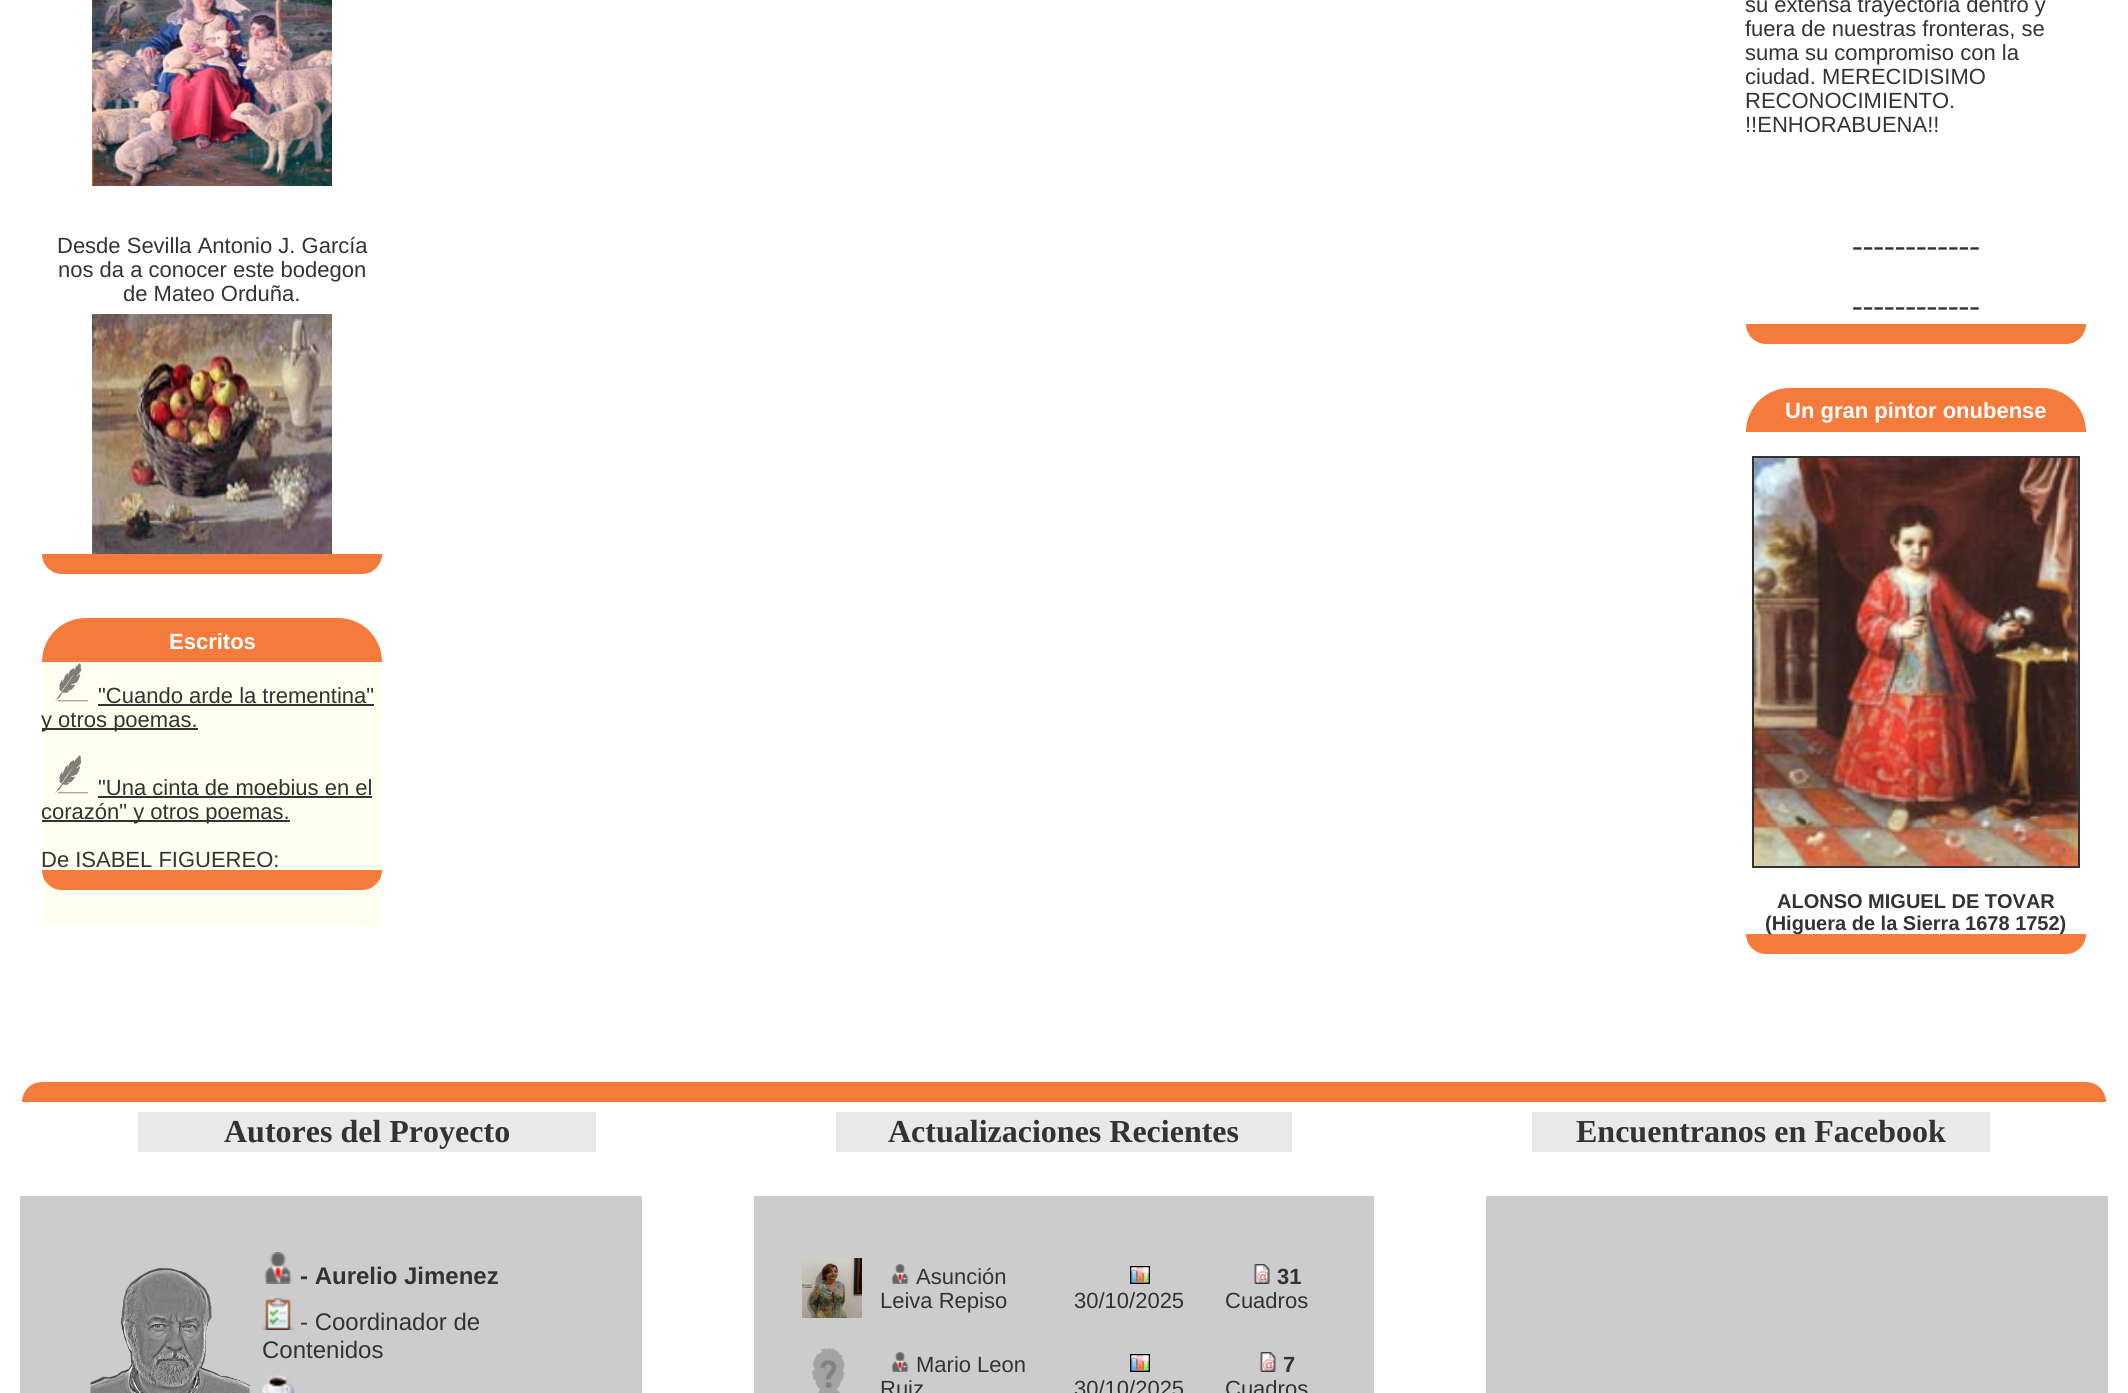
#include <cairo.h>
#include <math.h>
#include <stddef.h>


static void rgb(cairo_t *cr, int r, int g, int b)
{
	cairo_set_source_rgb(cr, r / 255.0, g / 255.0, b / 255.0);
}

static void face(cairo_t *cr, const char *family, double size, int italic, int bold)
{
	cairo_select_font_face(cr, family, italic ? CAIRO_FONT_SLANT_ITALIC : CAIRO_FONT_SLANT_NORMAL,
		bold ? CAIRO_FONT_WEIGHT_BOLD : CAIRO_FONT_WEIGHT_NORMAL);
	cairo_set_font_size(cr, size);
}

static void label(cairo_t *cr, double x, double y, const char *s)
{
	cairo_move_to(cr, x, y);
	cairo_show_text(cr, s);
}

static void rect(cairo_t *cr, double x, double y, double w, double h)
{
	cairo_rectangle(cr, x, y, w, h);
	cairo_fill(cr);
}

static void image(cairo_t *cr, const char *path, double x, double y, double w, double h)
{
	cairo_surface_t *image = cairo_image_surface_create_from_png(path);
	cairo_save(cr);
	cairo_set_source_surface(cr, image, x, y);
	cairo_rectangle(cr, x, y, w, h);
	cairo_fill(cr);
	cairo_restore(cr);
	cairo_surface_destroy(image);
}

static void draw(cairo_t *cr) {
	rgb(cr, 255, 255, 255);
	cairo_paint(cr);
	image(cr, "image0.png", 92, 0, 240, 186);
	face(cr, "Liberation Sans", 22, 0, 0);
	rgb(cr, 51, 51, 51);
	label(cr, 57, 253, "Desde Sevilla Antonio J. García");
	label(cr, 58, 277, "nos da a conocer este bodegon");
	label(cr, 123, 301, "de Mateo Orduña.");
	image(cr, "image1.png", 92, 314, 240, 240);
	rgb(cr, 245, 123, 61);
	cairo_new_path(cr);
	cairo_move_to(cr, 42, 554);
	cairo_line_to(cr, 382, 554);
	cairo_curve_to(cr, 382, 565, 373, 574, 362, 574);
	cairo_line_to(cr, 62, 574);
	cairo_curve_to(cr, 51, 574, 42, 565, 42, 554);
	cairo_close_path(cr);
	cairo_fill(cr);
	cairo_new_path(cr);
	cairo_move_to(cr, 86, 618);
	cairo_line_to(cr, 338, 618);
	cairo_curve_to(cr, 362.5, 618, 382, 637.5, 382, 662);
	cairo_line_to(cr, 42, 662);
	cairo_curve_to(cr, 42, 637.5, 61.5, 618, 86, 618);
	cairo_close_path(cr);
	cairo_fill(cr);
	face(cr, "Liberation Sans", 22, 0, 1);
	rgb(cr, 255, 255, 255);
	label(cr, 169, 649, "Escritos");
	rgb(cr, 255, 255, 240);
	rect(cr, 42, 662, 340, 264);
	image(cr, "image2.png", 55, 663, 34, 39);
	face(cr, "Liberation Sans", 22, 0, 0);
	rgb(cr, 51, 51, 51);
	label(cr, 98, 703, "\"Cuando arde la trementina\"");
	rect(cr, 98, 704, 276, 2);
	rect(cr, 42, 728, 156, 2);
	label(cr, 41, 727, "y otros poemas.");
	image(cr, "image3.png", 55, 755, 34, 39);
	label(cr, 98, 795, "\"Una cinta de moebius en el");
	rect(cr, 98, 796, 274, 2);
	rect(cr, 42, 820, 248, 2);
	label(cr, 41, 819, "corazón\" y otros poemas.");
	label(cr, 41, 867, "De ISABEL FIGUEREO:");
	rgb(cr, 245, 123, 61);
	cairo_new_path(cr);
	cairo_move_to(cr, 42, 870);
	cairo_line_to(cr, 382, 870);
	cairo_curve_to(cr, 382, 881, 373, 890, 362, 890);
	cairo_line_to(cr, 62, 890);
	cairo_curve_to(cr, 51, 890, 42, 881, 42, 870);
	cairo_close_path(cr);
	cairo_fill(cr);
	rgb(cr, 51, 51, 51);
	label(cr, 1745, 12, "su extensa trayectoria dentro y");
	label(cr, 1745, 36, "fuera de nuestras fronteras, se");
	label(cr, 1745, 60, "suma su compromiso con la");
	label(cr, 1745, 84, "ciudad. MERECIDISIMO");
	label(cr, 1745, 108, "RECONOCIMIENTO.");
	label(cr, 1745, 132, "!!ENHORABUENA!!");
	face(cr, "Liberation Serif", 32, 0, 0);
	label(cr, 1852, 256, "------------");
	label(cr, 1852, 316, "------------");
	rgb(cr, 245, 123, 61);
	cairo_new_path(cr);
	cairo_move_to(cr, 1746, 324);
	cairo_line_to(cr, 2086, 324);
	cairo_curve_to(cr, 2086, 335, 2077, 344, 2066, 344);
	cairo_line_to(cr, 1766, 344);
	cairo_curve_to(cr, 1755, 344, 1746, 335, 1746, 324);
	cairo_close_path(cr);
	cairo_fill(cr);
	cairo_new_path(cr);
	cairo_move_to(cr, 1790, 388);
	cairo_line_to(cr, 2042, 388);
	cairo_curve_to(cr, 2066.5, 388, 2086, 407.5, 2086, 432);
	cairo_line_to(cr, 1746, 432);
	cairo_curve_to(cr, 1746, 407.5, 1765.5, 388, 1790, 388);
	cairo_close_path(cr);
	cairo_fill(cr);
	face(cr, "Liberation Sans", 22, 0, 1);
	rgb(cr, 255, 255, 255);
	label(cr, 1785, 418, "Un gran pintor onubense");
	cairo_rectangle(cr, 1753, 457, 326, 410);
	rgb(cr, 51, 51, 51);
	cairo_stroke(cr);
	image(cr, "image4.png", 1754, 458, 324, 408);
	face(cr, "Liberation Sans", 20, 0, 1);
	label(cr, 1777, 908, "ALONSO MIGUEL DE TOVAR");
	rgb(cr, 245, 123, 61);
	cairo_new_path(cr);
	cairo_move_to(cr, 1746, 934);
	cairo_line_to(cr, 2086, 934);
	cairo_curve_to(cr, 2086, 945, 2077, 954, 2066, 954);
	cairo_line_to(cr, 1766, 954);
	cairo_curve_to(cr, 1755, 954, 1746, 945, 1746, 934);
	cairo_close_path(cr);
	cairo_fill(cr);
	rgb(cr, 51, 51, 51);
	label(cr, 1765, 930, "(Higuera de la Sierra 1678 1752)");
	rgb(cr, 245, 123, 61);
	cairo_new_path(cr);
	cairo_move_to(cr, 42, 1082);
	cairo_line_to(cr, 2086, 1082);
	cairo_curve_to(cr, 2097, 1082, 2106, 1091, 2106, 1102);
	cairo_line_to(cr, 22, 1102);
	cairo_curve_to(cr, 22, 1091, 31, 1082, 42, 1082);
	cairo_close_path(cr);
	cairo_fill(cr);
	rgb(cr, 233, 233, 233);
	rect(cr, 138, 1112, 458, 40);
	face(cr, "Liberation Serif", 32, 0, 1);
	rgb(cr, 51, 51, 51);
	label(cr, 224, 1142, "Autores del Proyecto");
	rgb(cr, 233, 233, 233);
	rect(cr, 836, 1112, 456, 40);
	rgb(cr, 51, 51, 51);
	label(cr, 888, 1142, "Actualizaciones Recientes");
	rgb(cr, 233, 233, 233);
	rect(cr, 1532, 1112, 458, 40);
	rgb(cr, 51, 51, 51);
	label(cr, 1576, 1142, "Encuentranos en Facebook");
	rgb(cr, 204, 204, 204);
	rect(cr, 20, 1196, 622, 197);
	image(cr, "image5.png", 90, 1268, 160, 125);
	image(cr, "image6.png", 264, 1252, 28, 32);
	face(cr, "Liberation Sans", 24, 0, 1);
	rgb(cr, 51, 51, 51);
	label(cr, 300, 1284, "- Aurelio Jimenez");
	image(cr, "image7.png", 262, 1298, 32, 32);
	face(cr, "Liberation Sans", 24, 0, 0);
	label(cr, 300, 1330, "- Coordinador de");
	label(cr, 262, 1358, "Contenidos");
	image(cr, "image8.png", 262, 1374, 32, 19);
	rgb(cr, 204, 204, 204);
	rect(cr, 754, 1196, 620, 197);
	image(cr, "image9.png", 802, 1258, 60, 60);
	image(cr, "image10.png", 891, 1264, 18, 20);
	face(cr, "Liberation Sans", 22, 0, 0);
	rgb(cr, 51, 51, 51);
	label(cr, 916, 1284, "Asunción");
	label(cr, 880, 1308, "Leiva Repiso");
	image(cr, "image11.png", 1130, 1266, 20, 18);
	label(cr, 1074, 1308, "30/10/2025");
	image(cr, "image12.png", 1254, 1264, 16, 20);
	face(cr, "Liberation Sans", 22, 0, 1);
	label(cr, 1277, 1284, "31");
	face(cr, "Liberation Sans", 22, 0, 0);
	label(cr, 1225, 1308, "Cuadros");
	image(cr, "image13.png", 812, 1347, 33, 46);
	image(cr, "image10.png", 891, 1352, 18, 20);
	label(cr, 916, 1372, "Mario Leon");
	label(cr, 880, 1396, "Ruiz");
	image(cr, "image11.png", 1130, 1354, 20, 18);
	label(cr, 1074, 1396, "30/10/2025");
	image(cr, "image14.png", 1260, 1352, 16, 20);
	face(cr, "Liberation Sans", 22, 0, 1);
	label(cr, 1283, 1372, "7");
	face(cr, "Liberation Sans", 22, 0, 0);
	label(cr, 1225, 1396, "Cuadros");
	rgb(cr, 204, 204, 204);
	rect(cr, 1486, 1196, 622, 197);
}

int main(void) {
	cairo_surface_t *surface = cairo_image_surface_create(CAIRO_FORMAT_RGB24, 2128, 1393);
	cairo_t *cr = cairo_create(surface);
	cairo_font_options_t *options = cairo_font_options_create();
	cairo_font_options_set_hint_metrics(options, CAIRO_HINT_METRICS_OFF);
	cairo_font_options_set_hint_style(options, CAIRO_HINT_STYLE_NONE);
	cairo_set_font_options(cr, options);
	cairo_set_miter_limit(cr, 4);
	draw(cr);
	cairo_surface_write_to_png(surface, "render.png");
	cairo_font_options_destroy(options);
	cairo_destroy(cr);
	cairo_surface_destroy(surface);
	return 0;
}
